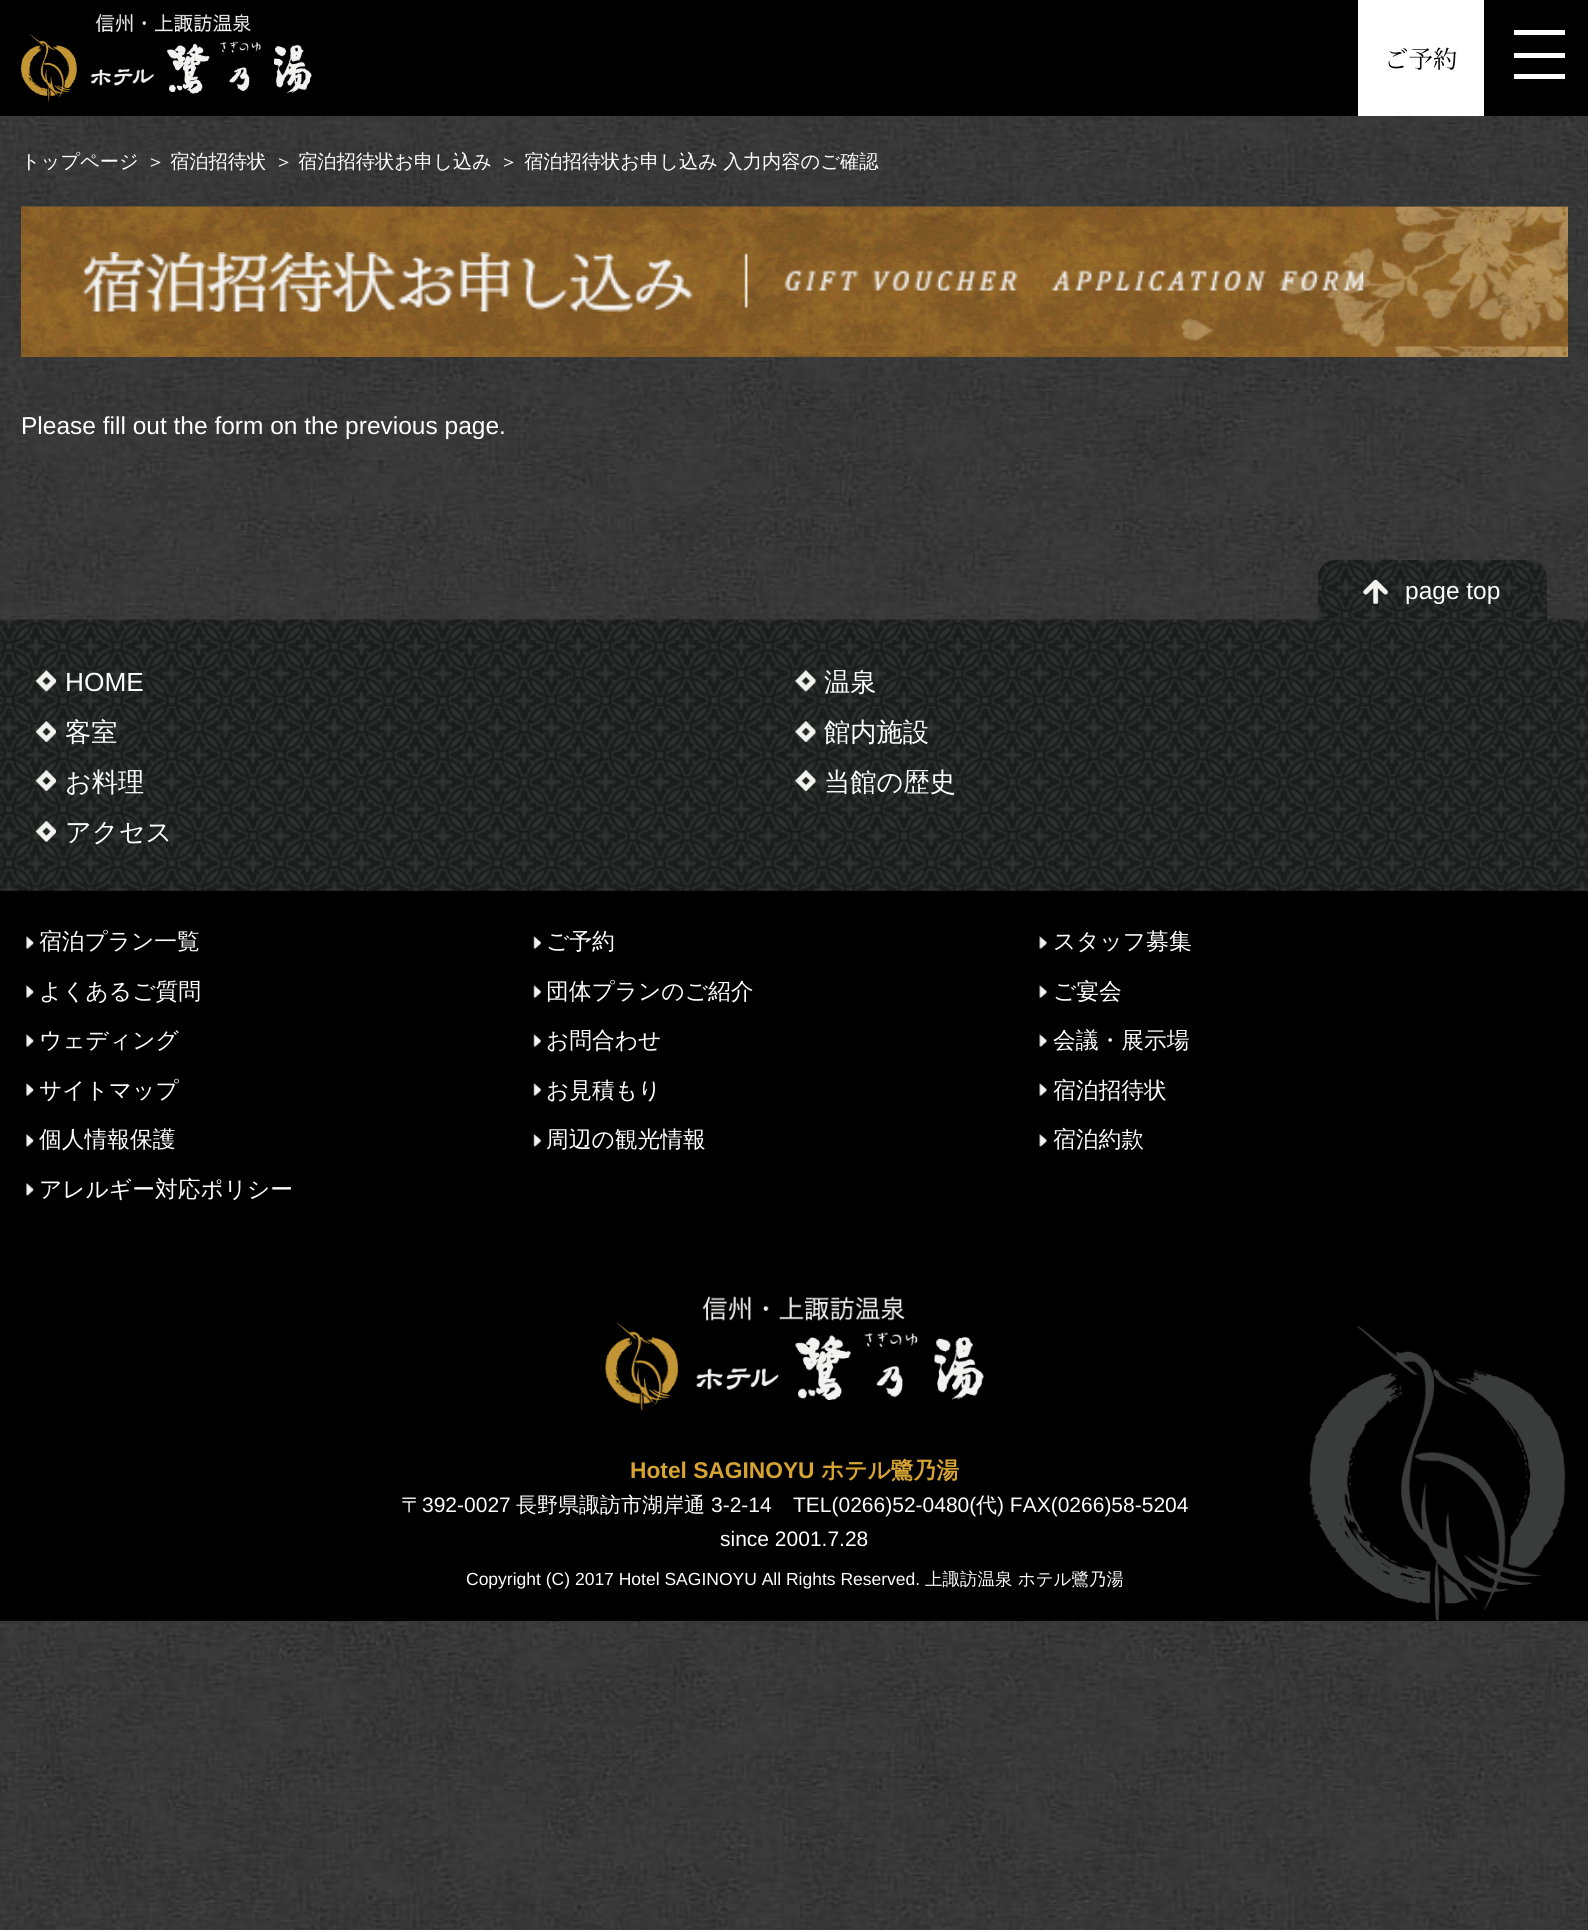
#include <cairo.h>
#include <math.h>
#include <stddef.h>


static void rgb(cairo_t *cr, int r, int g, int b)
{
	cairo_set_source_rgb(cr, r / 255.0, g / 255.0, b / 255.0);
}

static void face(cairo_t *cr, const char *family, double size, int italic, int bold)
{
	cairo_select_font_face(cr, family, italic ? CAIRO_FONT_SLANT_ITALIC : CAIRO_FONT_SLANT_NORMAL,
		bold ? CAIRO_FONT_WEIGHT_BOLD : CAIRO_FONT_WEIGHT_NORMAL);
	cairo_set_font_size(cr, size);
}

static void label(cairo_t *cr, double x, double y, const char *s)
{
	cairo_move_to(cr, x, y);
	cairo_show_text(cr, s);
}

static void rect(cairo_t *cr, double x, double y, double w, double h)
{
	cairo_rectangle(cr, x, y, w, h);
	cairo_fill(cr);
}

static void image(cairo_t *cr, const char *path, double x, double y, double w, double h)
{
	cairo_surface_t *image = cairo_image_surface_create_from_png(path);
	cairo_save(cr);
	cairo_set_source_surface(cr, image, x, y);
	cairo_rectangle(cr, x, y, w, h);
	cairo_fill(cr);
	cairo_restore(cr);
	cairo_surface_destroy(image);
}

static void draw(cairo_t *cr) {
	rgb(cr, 255, 255, 255);
	cairo_paint(cr);
	image(cr, "image0.png", 0, 116, 1588, 1814);
	rgb(cr, 0, 0, 0);
	rect(cr, 0, 0, 1588, 116);
	image(cr, "image1.png", 21, 14, 291, 88);
	rgb(cr, 255, 255, 255);
	rect(cr, 1358, 0, 126, 116);
	face(cr, "Noto Serif JP", 24.5, 0, 0);
	rgb(cr, 0, 0, 0);
	label(cr, 1384, 68, "ご予約");
	rgb(cr, 255, 255, 255);
	rect(cr, 1514, 30, 51, 5);
	rect(cr, 1514, 53, 51, 5);
	rect(cr, 1514, 74, 51, 5);
	face(cr, "WenQuanYi Zen Hei Medium", 19.25, 0, 0);
	label(cr, 21, 168, "トップページ");
	label(cr, 146, 168, "＞");
	label(cr, 170, 168, "宿泊招待状");
	label(cr, 274, 168, "＞");
	label(cr, 298, 168, "宿泊招待状お申し込み");
	label(cr, 499, 168, "＞");
	label(cr, 524, 168, "宿泊招待状お申し込み 入力内容のご確認");
	image(cr, "image2.png", 21, 206, 1547, 151);
	image(cr, "image3.png", 82, 252, 1282, 60);
	face(cr, "Liberation Sans", 24.5, 0, 0);
	label(cr, 21, 434, "Please fill out the form on the previous page.");
	rgb(cr, 0, 0, 0);
	rect(cr, 0, 890, 1588, 731);
	image(cr, "image6.png", 0, 619, 1588, 272);
	image(cr, "image4.png", 1318, 560, 229, 60);
	image(cr, "image5.png", 1363, 579, 25, 25);
	rgb(cr, 255, 255, 255);
	label(cr, 1405, 599, "page top");
	image(cr, "image7.png", 35, 670, 21, 22);
	face(cr, "Liberation Sans", 26.25, 0, 0);
	label(cr, 65, 691, "HOME");
	image(cr, "image8.png", 794, 670, 22, 22);
	face(cr, "WenQuanYi Zen Hei Medium", 26.25, 0, 0);
	label(cr, 824, 691, "温泉");
	image(cr, "image9.png", 35, 721, 21, 21);
	label(cr, 65, 741, "客室");
	image(cr, "image10.png", 794, 721, 22, 21);
	label(cr, 824, 741, "館内施設");
	image(cr, "image11.png", 35, 770, 21, 21);
	label(cr, 65, 791, "お料理");
	image(cr, "image12.png", 794, 770, 22, 21);
	label(cr, 824, 791, "当館の歴史");
	image(cr, "image13.png", 35, 820, 21, 22);
	label(cr, 65, 841, "アクセス");
	image(cr, "image14.png", 1309, 1326, 257, 295);
	image(cr, "image15.png", 26, 936, 8, 13);
	face(cr, "WenQuanYi Zen Hei Medium", 22.75, 0, 0);
	label(cr, 39, 949, "宿泊プラン一覧");
	image(cr, "image16.png", 533, 936, 8, 13);
	label(cr, 546, 949, "ご予約");
	image(cr, "image17.png", 1039, 936, 8, 13);
	label(cr, 1053, 949, "スタッフ募集");
	image(cr, "image15.png", 26, 985, 8, 13);
	label(cr, 39, 999, "よくあるご質問");
	image(cr, "image16.png", 533, 985, 8, 13);
	label(cr, 546, 999, "団体プランのご紹介");
	image(cr, "image17.png", 1039, 985, 8, 13);
	label(cr, 1053, 999, "ご宴会");
	image(cr, "image15.png", 26, 1034, 8, 13);
	label(cr, 39, 1048, "ウェディング");
	image(cr, "image16.png", 533, 1034, 8, 13);
	label(cr, 546, 1048, "お問合わせ");
	image(cr, "image17.png", 1039, 1034, 8, 13);
	label(cr, 1053, 1048, "会議・展示場");
	image(cr, "image15.png", 26, 1083, 8, 13);
	label(cr, 39, 1098, "サイトマップ");
	image(cr, "image16.png", 533, 1083, 8, 13);
	label(cr, 546, 1098, "お見積もり");
	image(cr, "image17.png", 1039, 1083, 8, 13);
	label(cr, 1053, 1098, "宿泊招待状");
	image(cr, "image18.png", 26, 1134, 8, 13);
	label(cr, 39, 1147, "個人情報保護");
	image(cr, "image19.png", 533, 1134, 8, 13);
	label(cr, 546, 1147, "周辺の観光情報");
	image(cr, "image20.png", 1039, 1134, 8, 13);
	label(cr, 1053, 1147, "宿泊約款");
	image(cr, "image18.png", 26, 1183, 8, 13);
	label(cr, 39, 1197, "アレルギー対応ポリシー");
	image(cr, "image21.png", 605, 1296, 379, 115);
	face(cr, "Liberation Sans", 22.75, 0, 1);
	rgb(cr, 215, 164, 50);
	label(cr, 630, 1478, "Hotel SAGINOYU");
	face(cr, "WenQuanYi Zen Hei", 22.75, 0, 1);
	label(cr, 821, 1478, "ホテル鷺乃湯");
	face(cr, "WenQuanYi Zen Hei Medium", 21, 0, 0);
	rgb(cr, 255, 255, 255);
	label(cr, 401, 1512, "〒");
	face(cr, "Liberation Sans", 21, 0, 0);
	label(cr, 422, 1512, "392-0027");
	face(cr, "WenQuanYi Zen Hei Medium", 21, 0, 0);
	label(cr, 516, 1512, "長野県諏訪市湖岸通");
	face(cr, "Liberation Sans", 21, 0, 0);
	label(cr, 711, 1512, "3-2-14");
	label(cr, 793, 1512, "TEL(0266)52-0480(");
	face(cr, "WenQuanYi Zen Hei Medium", 21, 0, 0);
	label(cr, 976, 1512, "代");
	face(cr, "Liberation Sans", 21, 0, 0);
	label(cr, 997, 1512, ") FAX(0266)58-5204");
	label(cr, 720, 1546, "since 2001.7.28");
	face(cr, "Liberation Sans", 17.5, 0, 0);
	label(cr, 466, 1585, "Copyright (C) 2017 Hotel SAGINOYU All Rights Reserved.");
	face(cr, "WenQuanYi Zen Hei Medium", 17.5, 0, 0);
	label(cr, 925, 1585, "上諏訪温泉 ホテル鷺乃湯");
}

int main(void) {
	cairo_surface_t *surface = cairo_image_surface_create(CAIRO_FORMAT_RGB24, 1588, 1930);
	cairo_t *cr = cairo_create(surface);
	cairo_font_options_t *options = cairo_font_options_create();
	cairo_font_options_set_hint_metrics(options, CAIRO_HINT_METRICS_OFF);
	cairo_font_options_set_hint_style(options, CAIRO_HINT_STYLE_NONE);
	cairo_set_font_options(cr, options);
	cairo_set_miter_limit(cr, 4);
	draw(cr);
	cairo_surface_write_to_png(surface, "render.png");
	cairo_font_options_destroy(options);
	cairo_destroy(cr);
	cairo_surface_destroy(surface);
	return 0;
}
